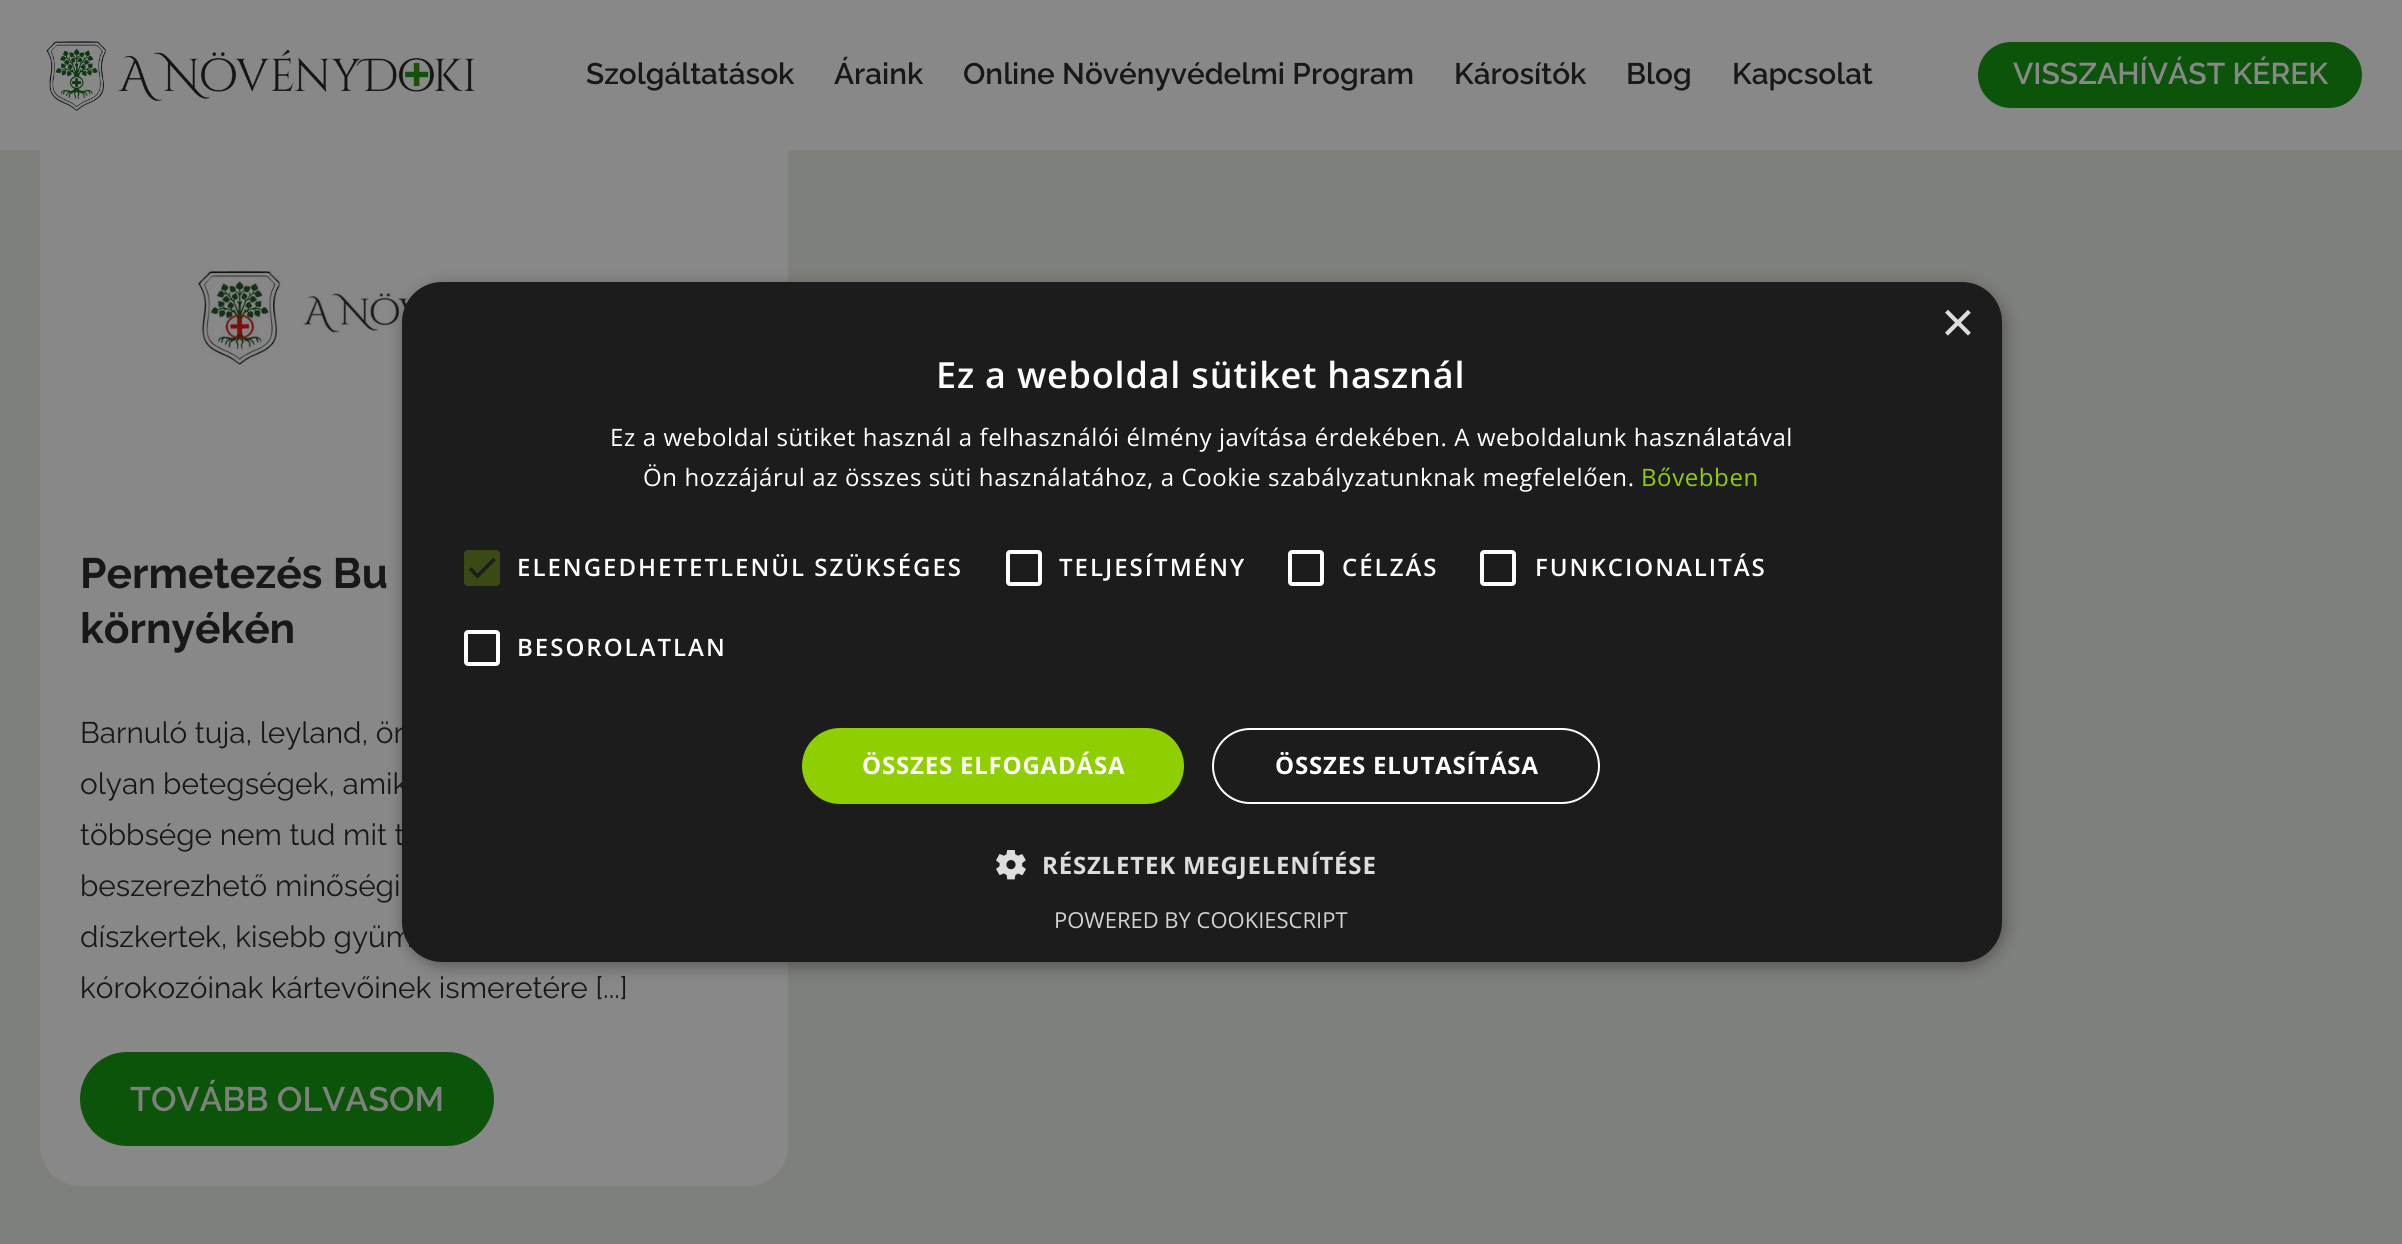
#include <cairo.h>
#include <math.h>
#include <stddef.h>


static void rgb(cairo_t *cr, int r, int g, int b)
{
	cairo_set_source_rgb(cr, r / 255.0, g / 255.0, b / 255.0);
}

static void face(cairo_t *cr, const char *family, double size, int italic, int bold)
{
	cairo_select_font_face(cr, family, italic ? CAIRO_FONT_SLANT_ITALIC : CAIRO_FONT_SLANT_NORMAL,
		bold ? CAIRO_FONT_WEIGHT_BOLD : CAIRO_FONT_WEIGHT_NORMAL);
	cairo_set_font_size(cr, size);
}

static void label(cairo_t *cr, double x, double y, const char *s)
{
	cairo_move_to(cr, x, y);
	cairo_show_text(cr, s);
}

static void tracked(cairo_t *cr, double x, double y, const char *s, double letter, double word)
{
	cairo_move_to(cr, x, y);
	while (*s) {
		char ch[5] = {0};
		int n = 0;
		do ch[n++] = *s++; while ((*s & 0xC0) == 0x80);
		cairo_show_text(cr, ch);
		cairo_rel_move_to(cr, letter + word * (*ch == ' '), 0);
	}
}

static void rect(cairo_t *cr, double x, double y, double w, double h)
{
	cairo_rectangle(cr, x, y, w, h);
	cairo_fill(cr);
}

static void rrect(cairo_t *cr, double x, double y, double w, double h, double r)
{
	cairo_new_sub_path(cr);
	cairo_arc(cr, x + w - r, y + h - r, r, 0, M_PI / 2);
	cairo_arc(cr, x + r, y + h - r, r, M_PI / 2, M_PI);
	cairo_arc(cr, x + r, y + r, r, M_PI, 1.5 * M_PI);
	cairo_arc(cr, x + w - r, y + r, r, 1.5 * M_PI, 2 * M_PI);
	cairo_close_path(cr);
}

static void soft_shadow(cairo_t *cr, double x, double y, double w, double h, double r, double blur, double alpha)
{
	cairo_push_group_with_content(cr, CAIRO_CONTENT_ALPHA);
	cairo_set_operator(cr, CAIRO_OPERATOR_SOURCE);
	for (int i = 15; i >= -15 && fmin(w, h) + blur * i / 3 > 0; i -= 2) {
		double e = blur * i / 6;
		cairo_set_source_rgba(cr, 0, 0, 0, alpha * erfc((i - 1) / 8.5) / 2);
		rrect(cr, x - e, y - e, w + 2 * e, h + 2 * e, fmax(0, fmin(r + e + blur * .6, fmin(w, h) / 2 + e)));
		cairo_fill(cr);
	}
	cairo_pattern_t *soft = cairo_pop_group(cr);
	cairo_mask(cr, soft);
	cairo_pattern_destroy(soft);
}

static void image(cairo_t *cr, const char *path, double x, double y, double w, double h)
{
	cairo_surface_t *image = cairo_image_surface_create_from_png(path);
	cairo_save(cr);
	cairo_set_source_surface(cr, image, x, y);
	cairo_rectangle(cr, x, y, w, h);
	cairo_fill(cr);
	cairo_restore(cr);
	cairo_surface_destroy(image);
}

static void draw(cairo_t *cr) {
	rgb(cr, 126, 128, 123);
	cairo_paint(cr);
	rgb(cr, 136, 136, 136);
	rrect(cr, 40, 90, 748, 1096, 40);
	cairo_fill(cr);
	rect(cr, 0, 0, 2402, 150);
	image(cr, "image0.png", 46, 41, 429, 70);
	face(cr, "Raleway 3 Thin", 29.75, 0, 0);
	rgb(cr, 24, 24, 24);
	label(cr, 586, 84, "Szolgáltatások");
	label(cr, 834, 84, "Áraink");
	label(cr, 963, 84, "Online Növényvédelmi Program");
	label(cr, 1454, 84, "Károsítók");
	label(cr, 1626, 84, "Blog");
	label(cr, 1732, 84, "Kapcsolat");
	rgb(cr, 11, 84, 10);
	rrect(cr, 1978, 42, 384, 66, 33);
	cairo_fill(cr);
	face(cr, "Raleway 3 Thin", 30, 0, 0);
	rgb(cr, 136, 136, 136);
	label(cr, 2013, 84, "VISSZAHÍVÁST KÉREK");
	image(cr, "image1.png", 194, 269, 400, 99);
	face(cr, "Raleway Thin", 42.5, 0, 0);
	rgb(cr, 24, 24, 24);
	label(cr, 80, 588, "Permetezés Bu");
	label(cr, 80, 643, "környékén");
	face(cr, "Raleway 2 Thin", 29.75, 0, 0);
	label(cr, 80, 743, "Barnuló tuja, leyland, ör");
	label(cr, 80, 794, "olyan betegségek, amik");
	label(cr, 80, 845, "többsége nem tud mit t");
	label(cr, 80, 896, "beszerezhető minőségi");
	label(cr, 80, 947, "díszkertek, kisebb gyüm");
	label(cr, 80, 998, "kórokozóinak kártevőinek ismeretére [...]");
	rgb(cr, 11, 84, 10);
	rrect(cr, 80, 1052, 414, 94, 47);
	cairo_fill(cr);
	face(cr, "Raleway 3 Thin", 34, 0, 0);
	rgb(cr, 126, 128, 123);
	label(cr, 130, 1111, "TOVÁBB OLVASOM");
	rgb(cr, 0, 0, 0);
	soft_shadow(cr, 404, 286, 1600, 680, 40, 8, 0.35);
	rgb(cr, 28, 28, 28);
	rrect(cr, 402, 282, 1600, 680, 40);
	cairo_fill(cr);
	face(cr, "Liberation Sans", 58, 0, 0);
	rgb(cr, 221, 221, 221);
	label(cr, 1941, 342, "×");
	face(cr, "Open Sans SemiBold", 36, 0, 0);
	rgb(cr, 255, 255, 255);
	tracked(cr, 936, 388, "Ez a weboldal sütiket használ", 0.8, 0);
	face(cr, "Open Sans", 24, 0, 0);
	tracked(cr, 610, 446, "Ez a weboldal sütiket használ a felhasználói élmény javítása érdekében. A weboldalunk használatával", 0.6, 0);
	tracked(cr, 643, 486, "Ön hozzájárul az összes süti használatához, a Cookie szabályzatunknak megfelelően.", 0.6, 0);
	rgb(cr, 143, 206, 0);
	tracked(cr, 1641, 486, "Bővebben", 0.6, 0);
	rgb(cr, 58, 74, 21);
	rrect(cr, 464, 550, 36, 36, 4);
	cairo_fill(cr);
	cairo_new_path(cr);
	cairo_move_to(cr, 470, 568.5);
	cairo_line_to(cr, 477.5, 576);
	cairo_line_to(cr, 494.5, 559);
	rgb(cr, 28, 28, 28);
	cairo_set_line_width(cr, 3.6);
	cairo_stroke(cr);
	face(cr, "Open Sans SemiBold", 24, 0, 0);
	rgb(cr, 255, 255, 255);
	tracked(cr, 517, 576, "ELENGEDHETETLENÜL SZÜKSÉGES", 2, 0);
	rrect(cr, 1008, 552, 32, 32, 2);
	cairo_set_line_width(cr, 4);
	cairo_stroke(cr);
	tracked(cr, 1059, 576, "TELJESÍTMÉNY", 2, 0);
	rrect(cr, 1290, 552, 32, 32, 2);
	cairo_stroke(cr);
	tracked(cr, 1342, 576, "CÉLZÁS", 2, 0);
	rrect(cr, 1482, 552, 32, 32, 2);
	cairo_stroke(cr);
	tracked(cr, 1535, 576, "FUNKCIONALITÁS", 2, 0);
	rrect(cr, 466, 632, 32, 32, 2);
	cairo_stroke(cr);
	tracked(cr, 517, 656, "BESOROLATLAN", 2, 0);
	rgb(cr, 143, 206, 0);
	rrect(cr, 802, 728, 382, 76, 38);
	cairo_fill(cr);
	face(cr, "Open Sans", 24, 0, 1);
	rgb(cr, 255, 255, 255);
	tracked(cr, 862, 774, "ÖSSZES ELFOGADÁSA", 0.8, 0);
	rrect(cr, 1213, 729, 386, 74, 37);
	cairo_set_line_width(cr, 2);
	cairo_stroke(cr);
	tracked(cr, 1275, 774, "ÖSSZES ELUTASÍTÁSA", 0.8, 0);
	image(cr, "image2.png", 996, 850, 30, 30);
	rgb(cr, 221, 221, 221);
	tracked(cr, 1042, 874, "RÉSZLETEK MEGJELENÍTÉSE", 0.8, 0);
	face(cr, "Open Sans", 22, 0, 0);
	rgb(cr, 210, 210, 210);
	label(cr, 1054, 928, "POWERED BY COOKIESCRIPT");
}

int main(void) {
	cairo_surface_t *surface = cairo_image_surface_create(CAIRO_FORMAT_RGB24, 2402, 1244);
	cairo_t *cr = cairo_create(surface);
	cairo_font_options_t *options = cairo_font_options_create();
	cairo_font_options_set_hint_metrics(options, CAIRO_HINT_METRICS_OFF);
	cairo_font_options_set_hint_style(options, CAIRO_HINT_STYLE_NONE);
	cairo_set_font_options(cr, options);
	cairo_set_miter_limit(cr, 4);
	draw(cr);
	cairo_surface_write_to_png(surface, "render.png");
	cairo_font_options_destroy(options);
	cairo_destroy(cr);
	cairo_surface_destroy(surface);
	return 0;
}
